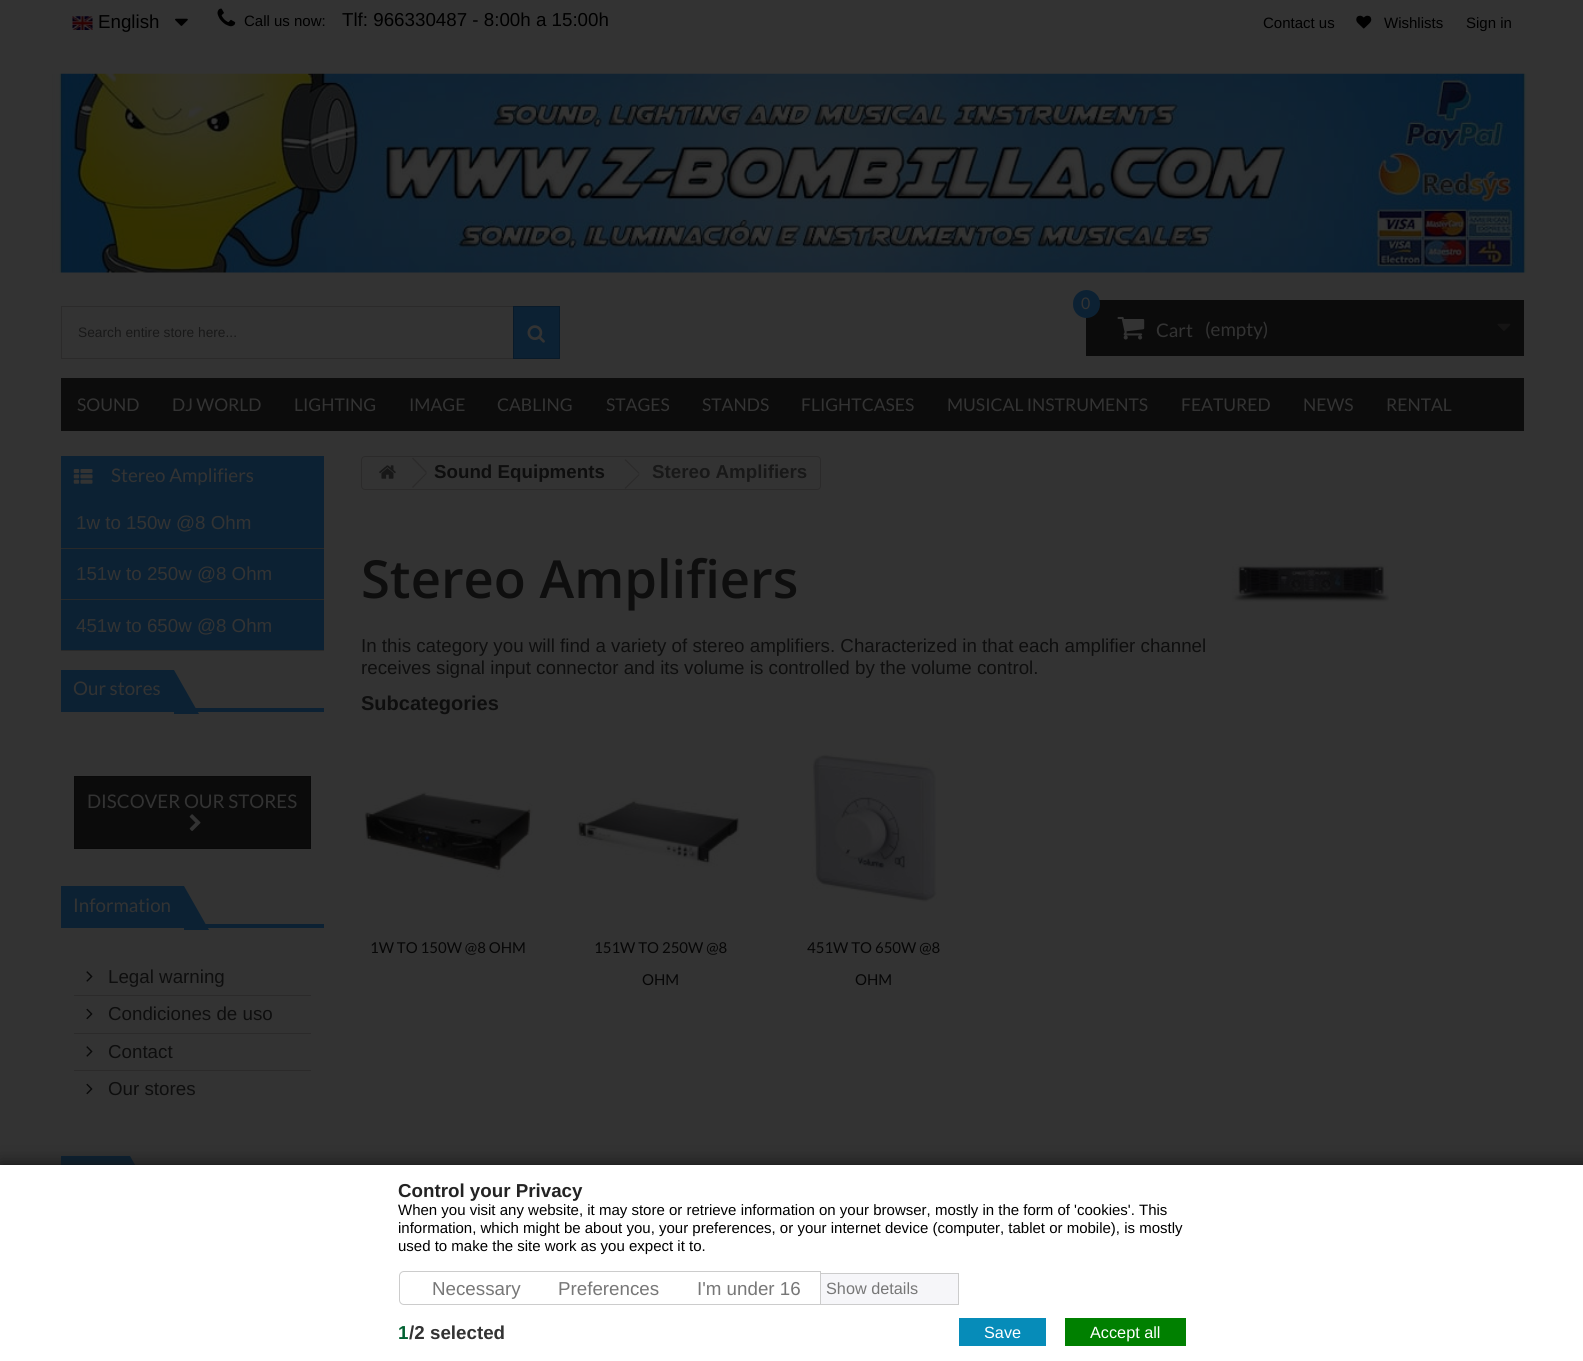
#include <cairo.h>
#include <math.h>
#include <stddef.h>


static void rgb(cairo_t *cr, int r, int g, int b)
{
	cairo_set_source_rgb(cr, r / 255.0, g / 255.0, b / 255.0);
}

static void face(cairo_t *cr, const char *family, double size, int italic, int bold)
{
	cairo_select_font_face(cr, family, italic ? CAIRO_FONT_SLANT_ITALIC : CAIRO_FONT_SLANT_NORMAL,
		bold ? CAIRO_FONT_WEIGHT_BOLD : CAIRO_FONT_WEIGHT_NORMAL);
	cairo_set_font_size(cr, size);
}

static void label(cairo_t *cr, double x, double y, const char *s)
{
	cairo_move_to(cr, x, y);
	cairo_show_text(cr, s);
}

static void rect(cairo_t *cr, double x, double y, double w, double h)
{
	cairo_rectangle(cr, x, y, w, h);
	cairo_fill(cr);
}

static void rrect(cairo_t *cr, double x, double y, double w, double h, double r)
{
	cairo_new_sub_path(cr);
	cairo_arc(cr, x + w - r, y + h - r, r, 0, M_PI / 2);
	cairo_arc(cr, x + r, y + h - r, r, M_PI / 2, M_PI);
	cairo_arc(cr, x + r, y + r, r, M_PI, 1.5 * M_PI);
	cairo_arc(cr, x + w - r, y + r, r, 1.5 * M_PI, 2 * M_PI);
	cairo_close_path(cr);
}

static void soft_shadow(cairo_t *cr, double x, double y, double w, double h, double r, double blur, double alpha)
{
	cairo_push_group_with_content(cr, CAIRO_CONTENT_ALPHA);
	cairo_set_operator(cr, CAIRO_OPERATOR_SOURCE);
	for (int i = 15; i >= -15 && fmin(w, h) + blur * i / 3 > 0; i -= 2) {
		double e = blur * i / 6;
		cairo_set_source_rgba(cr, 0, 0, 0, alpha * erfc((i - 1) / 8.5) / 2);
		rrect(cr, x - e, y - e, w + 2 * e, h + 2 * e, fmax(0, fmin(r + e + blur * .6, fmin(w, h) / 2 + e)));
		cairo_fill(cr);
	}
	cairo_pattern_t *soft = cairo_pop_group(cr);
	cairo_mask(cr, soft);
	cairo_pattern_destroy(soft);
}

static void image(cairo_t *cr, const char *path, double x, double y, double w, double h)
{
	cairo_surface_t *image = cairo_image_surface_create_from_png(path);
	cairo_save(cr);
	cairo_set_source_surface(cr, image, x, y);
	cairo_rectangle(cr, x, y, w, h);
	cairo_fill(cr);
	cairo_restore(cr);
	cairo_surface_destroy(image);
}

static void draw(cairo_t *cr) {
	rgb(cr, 51, 51, 51);
	cairo_paint(cr);
	image(cr, "image0.png", 72, 16, 21, 14);
	face(cr, "Liberation Sans", 18.75, 0, 0);
	rgb(cr, 0, 0, 0);
	label(cr, 98, 28, "English");
	image(cr, "image1.png", 175, 18, 13, 8);
	image(cr, "image2.png", 217, 8, 19, 19);
	face(cr, "Liberation Sans", 15, 0, 0);
	label(cr, 244, 26, "Call us now:");
	face(cr, "Liberation Sans", 18.75, 0, 0);
	label(cr, 342, 26, "Tlf: 966330487 - 8:00h a 15:00h");
	face(cr, "Liberation Sans", 15, 0, 0);
	label(cr, 1263, 28, "Contact us");
	image(cr, "image3.png", 1356, 15, 16, 14);
	label(cr, 1384, 28, "Wishlists");
	label(cr, 1466, 28, "Sign in");
	image(cr, "image4.png", 52, 73, 1475, 200);
	cairo_rectangle(cr, 61.5, 306.5, 498, 52);
	rgb(cr, 43, 42, 42);
	cairo_set_line_width(cr, 1);
	cairo_stroke(cr);
	face(cr, "Liberation Sans", 13.75, 0, 0);
	rgb(cr, 24, 24, 24);
	label(cr, 78, 337, "Search entire store here...");
	rgb(cr, 12, 33, 51);
	cairo_rectangle(cr, 513.5, 306.5, 46, 52);
	cairo_fill_preserve(cr);
	rgb(cr, 9, 26, 41);
	cairo_stroke(cr);
	image(cr, "image5.png", 527, 325, 18, 18);
	rgb(cr, 11, 11, 11);
	rect(cr, 1086, 300, 438, 56);
	rgb(cr, 12, 33, 51);
	rrect(cr, 1073, 290, 27, 28, 13.5);
	cairo_fill(cr);
	face(cr, "Lato", 16, 0, 0);
	rgb(cr, 51, 51, 51);
	label(cr, 1081, 309, "0");
	face(cr, "Lato", 18.75, 0, 0);
	label(cr, 1205, 336, "(empty)");
	image(cr, "image6.png", 1117, 316, 28, 24);
	label(cr, 1156, 337, "Cart");
	image(cr, "image7.png", 1497, 323, 14, 8);
	rgb(cr, 12, 12, 12);
	rect(cr, 61, 378, 1463, 53);
	face(cr, "Lato", 17.5, 0, 0);
	rgb(cr, 51, 51, 51);
	label(cr, 77, 411, "SOUND");
	label(cr, 172, 411, "DJ WORLD");
	label(cr, 294, 411, "LIGHTING");
	label(cr, 409, 411, "IMAGE");
	label(cr, 497, 411, "CABLING");
	label(cr, 606, 411, "STAGES");
	label(cr, 702, 411, "STANDS");
	label(cr, 801, 411, "FLIGHTCASES");
	label(cr, 947, 411, "MUSICAL INSTRUMENTS");
	label(cr, 1181, 411, "FEATURED");
	label(cr, 1303, 411, "NEWS");
	label(cr, 1386, 411, "RENTAL");
	rgb(cr, 12, 33, 51);
	rect(cr, 61, 456, 263, 194);
	image(cr, "image8.png", 73, 469, 20, 15);
	face(cr, "Lato", 18.75, 0, 0);
	rgb(cr, 51, 51, 51);
	label(cr, 111, 482, "Stereo Amplifiers");
	rgb(cr, 41, 41, 41);
	rect(cr, 61, 548, 263, 1);
	face(cr, "Liberation Sans", 18.75, 0, 0);
	rgb(cr, 51, 51, 51);
	label(cr, 76, 529, "1w to 150w @8 Ohm");
	rgb(cr, 41, 41, 41);
	rect(cr, 61, 599, 263, 1);
	rgb(cr, 51, 51, 51);
	label(cr, 76, 580, "151w to 250w @8 Ohm");
	rgb(cr, 41, 41, 41);
	rect(cr, 61, 650, 263, 1);
	rgb(cr, 51, 51, 51);
	label(cr, 76, 632, "451w to 650w @8 Ohm");
	rgb(cr, 12, 33, 51);
	rect(cr, 61, 708, 263, 4);
	rect(cr, 61, 670, 113, 38);
	face(cr, "Lato", 18.75, 0, 0);
	rgb(cr, 51, 51, 51);
	label(cr, 73, 695, "Our stores");
	rgb(cr, 12, 33, 51);
	cairo_new_path(cr);
	cairo_move_to(cr, 199, 714);
	cairo_line_to(cr, 174, 714);
	cairo_line_to(cr, 174, 670);
	cairo_close_path(cr);
	cairo_fill(cr);
	rgb(cr, 11, 11, 11);
	cairo_rectangle(cr, 74.5, 776.5, 236, 72);
	cairo_fill_preserve(cr);
	rgb(cr, 9, 9, 9);
	cairo_stroke(cr);
	rgb(cr, 51, 51, 51);
	label(cr, 87, 808, "DISCOVER OUR STORES");
	image(cr, "image9.png", 189, 814, 12, 17);
	rgb(cr, 12, 33, 51);
	rect(cr, 61, 924, 263, 4);
	rect(cr, 61, 886, 123, 38);
	rgb(cr, 51, 51, 51);
	label(cr, 73, 912, "Information");
	rgb(cr, 12, 33, 51);
	cairo_new_path(cr);
	cairo_move_to(cr, 209, 930);
	cairo_line_to(cr, 184, 930);
	cairo_line_to(cr, 184, 886);
	cairo_close_path(cr);
	cairo_fill(cr);
	image(cr, "image10.png", 86, 971, 7, 11);
	face(cr, "Liberation Sans", 18.75, 0, 0);
	rgb(cr, 14, 14, 14);
	label(cr, 108, 983, "Legal warning");
	rgb(cr, 43, 42, 42);
	rect(cr, 74, 995, 237, 1);
	image(cr, "image11.png", 86, 1008, 7, 12);
	rgb(cr, 14, 14, 14);
	label(cr, 108, 1020, "Condiciones de uso");
	rgb(cr, 43, 42, 42);
	rect(cr, 74, 1033, 237, 1);
	image(cr, "image10.png", 86, 1046, 7, 11);
	rgb(cr, 14, 14, 14);
	label(cr, 108, 1058, "Contact");
	rgb(cr, 43, 42, 42);
	rect(cr, 74, 1070, 237, 1);
	image(cr, "image11.png", 86, 1083, 7, 12);
	rgb(cr, 14, 14, 14);
	label(cr, 108, 1095, "Our stores");
	rgb(cr, 12, 33, 51);
	rect(cr, 61, 1156, 69, 9);
	cairo_new_path(cr);
	cairo_move_to(cr, 155, 1200);
	cairo_line_to(cr, 130, 1200);
	cairo_line_to(cr, 130, 1156);
	cairo_close_path(cr);
	cairo_fill(cr);
	rrect(cr, 361.5, 456.5, 459, 33, 3.5);
	rgb(cr, 43, 42, 42);
	cairo_stroke(cr);
	image(cr, "image12.png", 379, 465, 17, 14);
	cairo_new_path(cr);
	cairo_move_to(cr, 413, 457.5);
	cairo_line_to(cr, 427, 472);
	cairo_line_to(cr, 426, 473);
	cairo_line_to(cr, 412, 458.5);
	cairo_close_path(cr);
	cairo_move_to(cr, 426, 473);
	cairo_line_to(cr, 427, 473.5);
	cairo_line_to(cr, 413, 488);
	cairo_line_to(cr, 412, 487);
	cairo_close_path(cr);
	cairo_fill(cr);
	face(cr, "Liberation Sans", 18.75, 0, 1);
	rgb(cr, 14, 14, 14);
	label(cr, 434, 478, "Sound Equipments");
	rgb(cr, 43, 42, 42);
	cairo_new_path(cr);
	cairo_move_to(cr, 625.5, 459);
	cairo_line_to(cr, 639.5, 473);
	cairo_line_to(cr, 639, 474);
	cairo_line_to(cr, 624.5, 460);
	cairo_close_path(cr);
	cairo_move_to(cr, 639, 474);
	cairo_line_to(cr, 639.5, 475);
	cairo_line_to(cr, 625.5, 489);
	cairo_line_to(cr, 624.5, 488);
	cairo_close_path(cr);
	cairo_fill(cr);
	rgb(cr, 24, 24, 24);
	label(cr, 652, 478, "Stereo Amplifiers");
	face(cr, "Open Sans SemiBold", 52.5, 0, 0);
	rgb(cr, 14, 14, 14);
	label(cr, 361, 598, "Stereo Amplifiers");
	face(cr, "Liberation Sans", 18.75, 0, 0);
	label(cr, 361, 652, "In this category you will find a variety of stereo amplifiers. Characterized in that each amplifier channel");
	label(cr, 361, 674, "receives signal input connector and its volume is controlled by the volume control.");
	image(cr, "image13.png", 1232, 564, 157, 38);
	face(cr, "Liberation Sans", 20, 0, 1);
	label(cr, 361, 710, "Subcategories");
	image(cr, "image14.png", 364, 791, 170, 87);
	face(cr, "Lato", 15, 0, 0);
	rgb(cr, 6, 6, 6);
	label(cr, 370, 953, "1W TO 150W @8 OHM");
	image(cr, "image15.png", 576, 798, 164, 69);
	label(cr, 594, 953, "151W TO 250W @8");
	label(cr, 642, 985, "OHM");
	image(cr, "image16.png", 811, 753, 126, 149);
	label(cr, 807, 953, "451W TO 650W @8");
	label(cr, 855, 985, "OHM");
	rgb(cr, 18, 18, 18);
	soft_shadow(cr, 0, 1165, 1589, 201, 0, 9, 1);
	rgb(cr, 255, 255, 255);
	rect(cr, 0, 1165, 1583, 196);
	face(cr, "Liberation Sans", 18.75, 0, 1);
	rgb(cr, 35, 35, 35);
	label(cr, 398, 1197, "Control your Privacy");
	face(cr, "Liberation Sans", 15, 0, 0);
	rgb(cr, 0, 0, 0);
	label(cr, 398, 1215, "When you visit any website, it may store or retrieve information on your browser, mostly in the form of 'cookies'. This");
	label(cr, 398, 1233, "information, which might be about you, your preferences, or your internet device (computer, tablet or mobile), is mostly");
	label(cr, 398, 1251, "used to make the site work as you expect it to.");
	cairo_new_path(cr);
	cairo_move_to(cr, 404, 1271.5);
	cairo_line_to(cr, 820.5, 1271.5);
	cairo_line_to(cr, 820.5, 1304.5);
	cairo_line_to(cr, 404, 1304.5);
	cairo_curve_to(cr, 401.5, 1304.5, 399.5, 1302.5, 399.5, 1300);
	cairo_line_to(cr, 399.5, 1276);
	cairo_curve_to(cr, 399.5, 1273.5, 401.5, 1271.5, 404, 1271.5);
	cairo_close_path(cr);
	rgb(cr, 204, 204, 204);
	cairo_stroke(cr);
	face(cr, "Liberation Sans", 18.75, 0, 0);
	rgb(cr, 119, 119, 119);
	label(cr, 432, 1295, "Necessary");
	label(cr, 558, 1295, "Preferences");
	label(cr, 697, 1295, "I'm under 16");
	rgb(cr, 246, 246, 249);
	rect(cr, 821, 1274, 137, 30);
	rgb(cr, 204, 204, 204);
	rect(cr, 821, 1273, 138, 1);
	rect(cr, 958, 1273, 1, 32);
	rect(cr, 821, 1304, 138, 1);
	face(cr, "Liberation Sans", 16.25, 0, 0);
	rgb(cr, 119, 119, 119);
	label(cr, 826, 1294, "Show details");
	face(cr, "Liberation Sans", 18.75, 0, 1);
	rgb(cr, 0, 97, 49);
	label(cr, 398, 1339, "1");
	rgb(cr, 51, 51, 51);
	label(cr, 409, 1339, "/2");
	label(cr, 430, 1339, "selected");
	rgb(cr, 6, 140, 185);
	rect(cr, 959, 1318, 87, 28);
	face(cr, "Liberation Sans", 16.25, 0, 0);
	rgb(cr, 255, 255, 255);
	label(cr, 984, 1338, "Save");
	rgb(cr, 0, 128, 0);
	rect(cr, 1065, 1318, 121, 28);
	rgb(cr, 255, 255, 255);
	label(cr, 1090, 1338, "Accept all");
}

int main(void) {
	cairo_surface_t *surface = cairo_image_surface_create(CAIRO_FORMAT_RGB24, 1583, 1361);
	cairo_t *cr = cairo_create(surface);
	cairo_font_options_t *options = cairo_font_options_create();
	cairo_font_options_set_hint_metrics(options, CAIRO_HINT_METRICS_OFF);
	cairo_font_options_set_hint_style(options, CAIRO_HINT_STYLE_NONE);
	cairo_set_font_options(cr, options);
	cairo_set_miter_limit(cr, 4);
	draw(cr);
	cairo_surface_write_to_png(surface, "render.png");
	cairo_font_options_destroy(options);
	cairo_destroy(cr);
	cairo_surface_destroy(surface);
	return 0;
}
